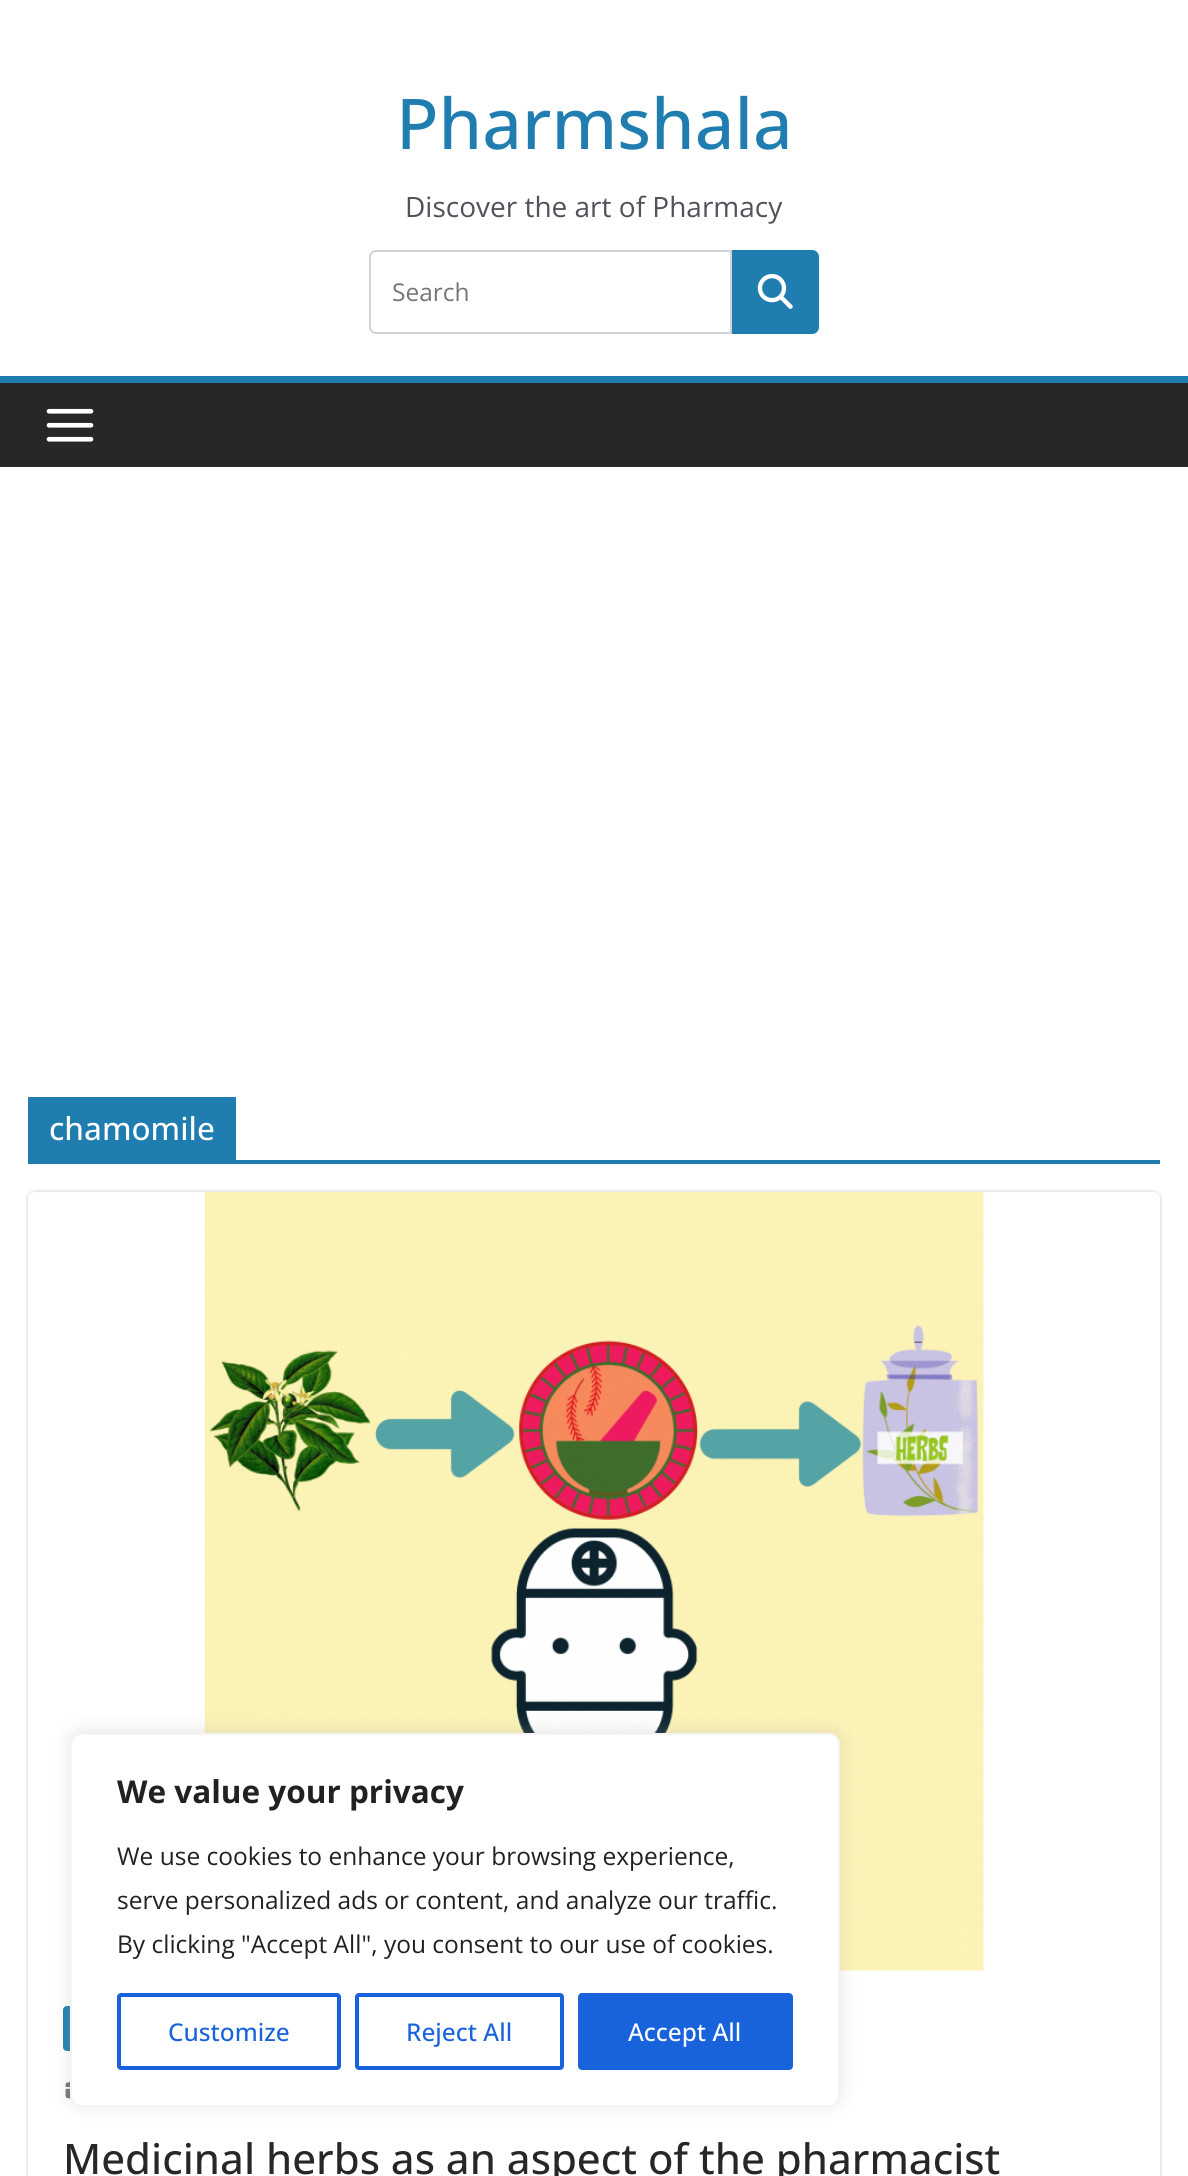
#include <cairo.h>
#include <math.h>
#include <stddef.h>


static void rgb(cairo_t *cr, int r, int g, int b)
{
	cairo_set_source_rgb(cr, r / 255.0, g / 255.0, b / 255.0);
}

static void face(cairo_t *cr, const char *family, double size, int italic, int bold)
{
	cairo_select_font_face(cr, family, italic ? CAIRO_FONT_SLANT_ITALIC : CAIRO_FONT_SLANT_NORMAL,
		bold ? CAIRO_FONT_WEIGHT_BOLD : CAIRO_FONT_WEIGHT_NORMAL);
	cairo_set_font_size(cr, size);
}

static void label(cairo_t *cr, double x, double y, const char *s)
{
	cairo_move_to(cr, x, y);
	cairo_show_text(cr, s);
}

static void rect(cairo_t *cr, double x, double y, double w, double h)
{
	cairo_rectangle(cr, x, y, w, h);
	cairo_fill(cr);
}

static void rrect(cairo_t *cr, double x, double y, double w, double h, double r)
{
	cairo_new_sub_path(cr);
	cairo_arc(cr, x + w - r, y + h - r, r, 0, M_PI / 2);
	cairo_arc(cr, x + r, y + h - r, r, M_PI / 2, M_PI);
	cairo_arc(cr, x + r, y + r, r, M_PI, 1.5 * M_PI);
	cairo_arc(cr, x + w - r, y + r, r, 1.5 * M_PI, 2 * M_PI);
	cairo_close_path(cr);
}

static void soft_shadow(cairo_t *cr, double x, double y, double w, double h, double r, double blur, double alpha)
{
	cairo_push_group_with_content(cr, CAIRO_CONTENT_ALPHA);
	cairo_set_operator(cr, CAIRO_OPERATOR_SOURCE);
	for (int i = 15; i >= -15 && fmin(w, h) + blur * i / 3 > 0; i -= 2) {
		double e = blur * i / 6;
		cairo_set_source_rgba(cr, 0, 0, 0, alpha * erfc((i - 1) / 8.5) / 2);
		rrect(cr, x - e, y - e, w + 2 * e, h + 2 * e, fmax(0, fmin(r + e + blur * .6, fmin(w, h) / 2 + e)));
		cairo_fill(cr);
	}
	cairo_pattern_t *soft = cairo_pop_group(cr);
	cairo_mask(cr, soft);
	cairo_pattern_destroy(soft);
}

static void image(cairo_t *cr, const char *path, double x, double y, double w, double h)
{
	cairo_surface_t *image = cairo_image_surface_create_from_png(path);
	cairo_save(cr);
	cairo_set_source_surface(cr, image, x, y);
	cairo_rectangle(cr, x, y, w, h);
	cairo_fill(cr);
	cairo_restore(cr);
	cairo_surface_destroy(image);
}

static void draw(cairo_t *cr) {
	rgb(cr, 255, 255, 255);
	cairo_paint(cr);
	face(cr, "Open Sans Medium", 70, 0, 0);
	rgb(cr, 32, 125, 175);
	label(cr, 396, 149, "Pharmshala");
	face(cr, "Open Sans", 28, 0, 0);
	rgb(cr, 82, 82, 91);
	label(cr, 405, 217, "Discover the art of Pharmacy");
	cairo_new_path(cr);
	cairo_move_to(cr, 376, 251);
	cairo_line_to(cr, 731, 251);
	cairo_line_to(cr, 731, 333);
	cairo_line_to(cr, 376, 333);
	cairo_curve_to(cr, 372.5, 333, 370, 330.5, 370, 327);
	cairo_line_to(cr, 370, 257);
	cairo_curve_to(cr, 370, 253.5, 372.5, 251, 376, 251);
	cairo_close_path(cr);
	rgb(cr, 212, 212, 216);
	cairo_stroke(cr);
	face(cr, "Open Sans", 24.5, 0, 0);
	rgb(cr, 117, 117, 117);
	label(cr, 392, 301, "Search");
	rgb(cr, 32, 125, 175);
	cairo_new_path(cr);
	cairo_move_to(cr, 733, 251);
	cairo_line_to(cr, 812, 251);
	cairo_curve_to(cr, 815.5, 251, 818, 253.5, 818, 257);
	cairo_line_to(cr, 818, 327);
	cairo_curve_to(cr, 818, 330.5, 815.5, 333, 812, 333);
	cairo_line_to(cr, 733, 333);
	cairo_close_path(cr);
	cairo_fill_preserve(cr);
	cairo_stroke(cr);
	image(cr, "image0.png", 757, 273, 36, 36);
	rgb(cr, 39, 39, 42);
	rect(cr, 0, 383, 1188, 84);
	rgb(cr, 32, 125, 175);
	rect(cr, 0, 376, 1188, 7);
	image(cr, "image1.png", 46, 408, 48, 34);
	rect(cr, 28, 1160, 1132, 4);
	rect(cr, 28, 1097, 208, 63);
	face(cr, "Open Sans Medium", 31.5, 0, 0);
	rgb(cr, 255, 255, 255);
	label(cr, 49, 1140, "chamomile");
	cairo_save(cr);
	cairo_set_fill_rule(cr, CAIRO_FILL_RULE_EVEN_ODD);
	cairo_new_path(cr);
	cairo_move_to(cr, 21, 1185);
	cairo_line_to(cr, 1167, 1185);
	cairo_line_to(cr, 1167, 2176);
	cairo_line_to(cr, 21, 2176);
	cairo_close_path(cr);
	cairo_move_to(cr, 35, 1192);
	cairo_line_to(cr, 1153, 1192);
	cairo_curve_to(cr, 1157, 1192, 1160, 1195, 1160, 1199);
	cairo_line_to(cr, 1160, 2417);
	cairo_curve_to(cr, 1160, 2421, 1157, 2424, 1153, 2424);
	cairo_line_to(cr, 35, 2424);
	cairo_curve_to(cr, 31, 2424, 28, 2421, 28, 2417);
	cairo_line_to(cr, 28, 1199);
	cairo_curve_to(cr, 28, 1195, 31, 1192, 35, 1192);
	cairo_close_path(cr);
	cairo_clip(cr);
	rgb(cr, 0, 0, 0);
	soft_shadow(cr, 28, 1192, 1132, 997, 7, 2, 0.24);
	cairo_restore(cr);
	image(cr, "image2.png", 204, 1192, 780, 779);
	rgb(cr, 32, 125, 175);
	rrect(cr, 63, 2006, 168, 45, 4);
	cairo_fill(cr);
	image(cr, "image3.png", 65, 2081, 6, 18);
	face(cr, "Open Sans Medium", 42, 0, 0);
	rgb(cr, 39, 39, 42);
	label(cr, 63, 2174, "Medicinal herbs as an aspect of the pharmacist");
	rgb(cr, 172, 171, 171);
	soft_shadow(cr, 70, 1731, 770, 374, 11, 9, 0.3);
	rgb(cr, 255, 255, 255);
	rrect(cr, 71, 1734, 768, 372, 10);
	cairo_fill_preserve(cr);
	rgb(cr, 244, 244, 244);
	cairo_stroke(cr);
	face(cr, "Open Sans", 31.5, 0, 1);
	rgb(cr, 33, 33, 33);
	label(cr, 117, 1803, "We value your privacy");
	face(cr, "Open Sans", 24.5, 0, 0);
	label(cr, 117, 1865, "We use cookies to enhance your browsing experience,");
	label(cr, 117, 1909, "serve personalized ads or content, and analyze our traffic.");
	label(cr, 117, 1953, "By clicking \"Accept All\", you consent to our use of cookies.");
	rrect(cr, 119, 1995, 220, 73, 2);
	rgb(cr, 24, 99, 220);
	cairo_set_line_width(cr, 4);
	cairo_stroke(cr);
	face(cr, "Open Sans Medium", 24.5, 0, 0);
	label(cr, 168, 2041, "Customize");
	rrect(cr, 357, 1995, 205, 73, 2);
	cairo_stroke(cr);
	label(cr, 406, 2041, "Reject All");
	rrect(cr, 580, 1995, 211, 73, 2);
	cairo_fill_preserve(cr);
	cairo_stroke(cr);
	rgb(cr, 255, 255, 255);
	label(cr, 628, 2041, "Accept All");
}

int main(void) {
	cairo_surface_t *surface = cairo_image_surface_create(CAIRO_FORMAT_RGB24, 1188, 2176);
	cairo_t *cr = cairo_create(surface);
	cairo_font_options_t *options = cairo_font_options_create();
	cairo_font_options_set_hint_metrics(options, CAIRO_HINT_METRICS_OFF);
	cairo_font_options_set_hint_style(options, CAIRO_HINT_STYLE_NONE);
	cairo_set_font_options(cr, options);
	cairo_set_miter_limit(cr, 4);
	draw(cr);
	cairo_surface_write_to_png(surface, "render.png");
	cairo_font_options_destroy(options);
	cairo_destroy(cr);
	cairo_surface_destroy(surface);
	return 0;
}
